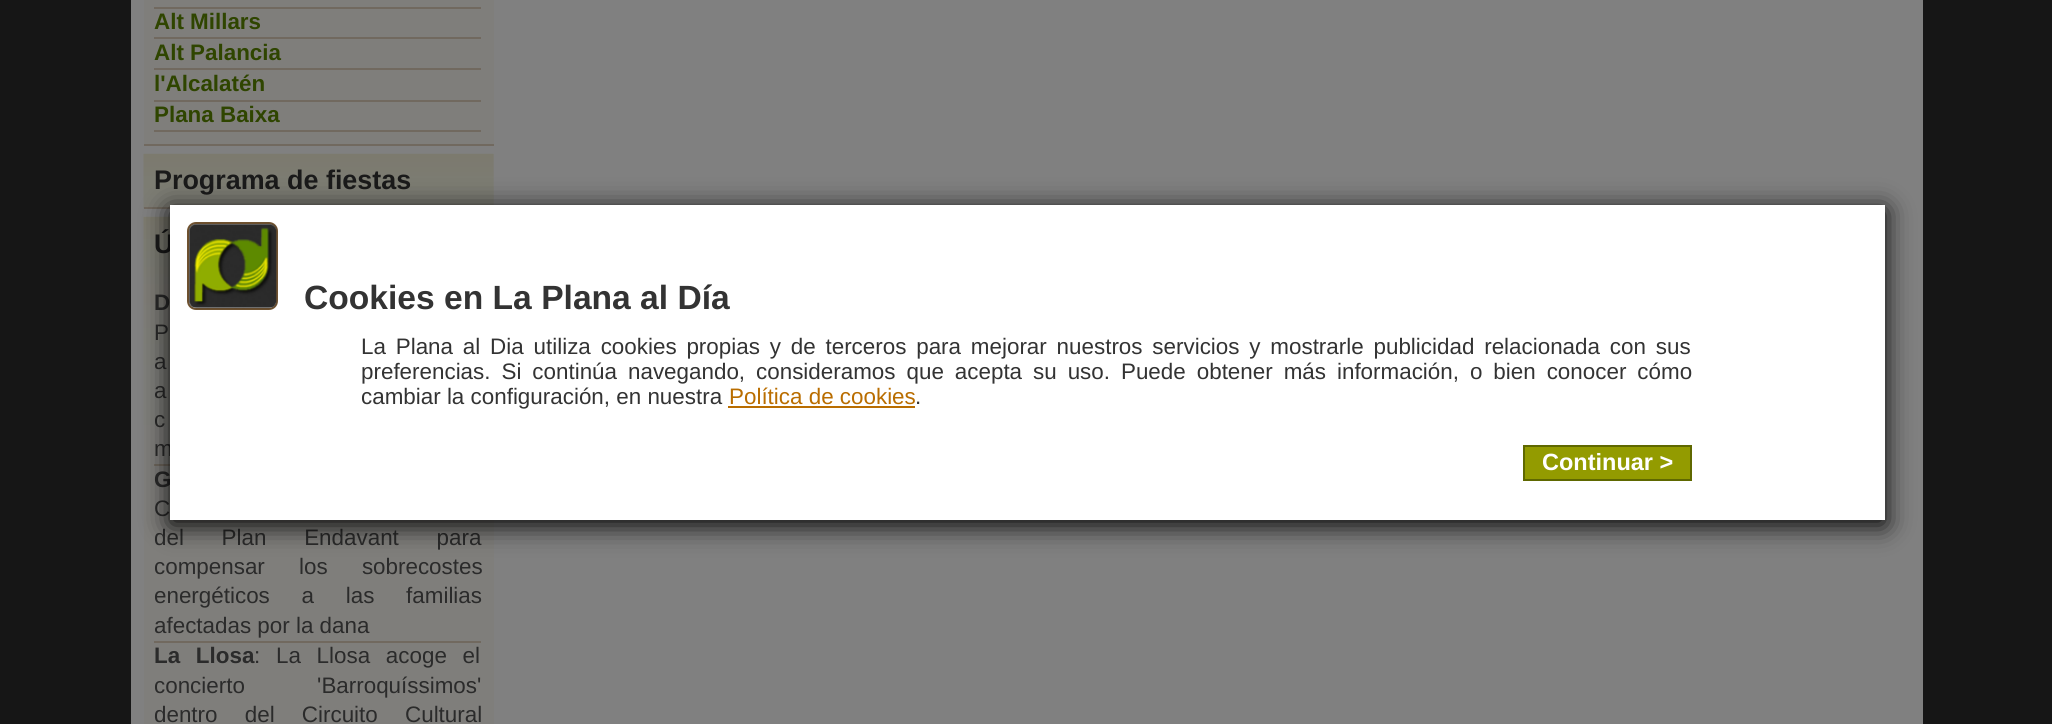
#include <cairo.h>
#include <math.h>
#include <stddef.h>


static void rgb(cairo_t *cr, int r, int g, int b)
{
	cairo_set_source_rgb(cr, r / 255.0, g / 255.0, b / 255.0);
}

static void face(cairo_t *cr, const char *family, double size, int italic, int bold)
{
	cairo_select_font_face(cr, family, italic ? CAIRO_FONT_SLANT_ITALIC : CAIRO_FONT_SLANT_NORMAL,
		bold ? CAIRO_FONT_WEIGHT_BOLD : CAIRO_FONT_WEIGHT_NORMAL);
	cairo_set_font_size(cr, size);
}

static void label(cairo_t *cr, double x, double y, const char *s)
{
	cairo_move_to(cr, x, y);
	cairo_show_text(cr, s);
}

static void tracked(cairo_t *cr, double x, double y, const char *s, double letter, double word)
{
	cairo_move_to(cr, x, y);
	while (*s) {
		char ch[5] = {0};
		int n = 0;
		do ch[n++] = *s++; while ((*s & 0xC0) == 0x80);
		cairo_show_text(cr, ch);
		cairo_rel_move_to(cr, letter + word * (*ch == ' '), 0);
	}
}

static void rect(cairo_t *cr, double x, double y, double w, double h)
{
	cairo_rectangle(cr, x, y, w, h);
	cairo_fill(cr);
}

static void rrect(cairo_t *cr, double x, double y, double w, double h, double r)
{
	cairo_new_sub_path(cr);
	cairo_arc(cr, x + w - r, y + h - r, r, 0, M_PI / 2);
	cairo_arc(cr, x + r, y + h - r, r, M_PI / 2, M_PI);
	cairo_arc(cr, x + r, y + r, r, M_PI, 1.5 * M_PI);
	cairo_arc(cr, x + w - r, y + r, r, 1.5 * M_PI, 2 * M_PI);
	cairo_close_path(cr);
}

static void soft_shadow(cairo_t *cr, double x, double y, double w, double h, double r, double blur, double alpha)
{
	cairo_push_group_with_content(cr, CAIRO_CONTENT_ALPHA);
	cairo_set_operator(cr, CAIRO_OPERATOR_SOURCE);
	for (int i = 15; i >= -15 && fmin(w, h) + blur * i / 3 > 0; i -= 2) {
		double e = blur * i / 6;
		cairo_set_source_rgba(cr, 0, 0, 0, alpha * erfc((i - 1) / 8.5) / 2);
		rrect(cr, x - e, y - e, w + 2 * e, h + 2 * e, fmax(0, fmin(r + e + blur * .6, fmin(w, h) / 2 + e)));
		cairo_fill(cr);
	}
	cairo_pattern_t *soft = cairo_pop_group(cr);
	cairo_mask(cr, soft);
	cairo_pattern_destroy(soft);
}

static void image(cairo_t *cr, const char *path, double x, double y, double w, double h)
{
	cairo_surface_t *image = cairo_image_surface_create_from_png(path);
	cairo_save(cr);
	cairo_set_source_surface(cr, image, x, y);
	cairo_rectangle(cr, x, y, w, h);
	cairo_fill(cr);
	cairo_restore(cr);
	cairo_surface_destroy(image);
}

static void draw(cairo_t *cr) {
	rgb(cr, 22, 22, 22);
	cairo_paint(cr);
	rgb(cr, 128, 128, 128);
	rect(cr, 131, 0, 1792, 724);
	rgb(cr, 127, 126, 123);
	rect(cr, 144, 0, 350, 144);
	rgb(cr, 113, 105, 95);
	rect(cr, 144, 144, 350, 2);
	rect(cr, 154, 7, 327, 2);
	rect(cr, 154, 37, 327, 2);
	face(cr, "Liberation Sans", 22.4, 0, 1);
	rgb(cr, 47, 69, 0);
	label(cr, 154, 29, "Alt Millars");
	rgb(cr, 113, 105, 95);
	rect(cr, 154, 68, 327, 2);
	rgb(cr, 47, 69, 0);
	label(cr, 154, 60, "Alt Palancia");
	rgb(cr, 113, 105, 95);
	rect(cr, 154, 100, 327, 2);
	rgb(cr, 47, 69, 0);
	label(cr, 154, 91, "l'Alcalatén");
	rgb(cr, 113, 105, 95);
	rect(cr, 154, 130, 327, 2);
	rgb(cr, 47, 69, 0);
	label(cr, 154, 122, "Plana Baixa");
	rgb(cr, 127, 126, 123);
	rect(cr, 493, 154, 1, 51);
	image(cr, "image0.png", 143, 153, 351, 55);
	rgb(cr, 113, 105, 95);
	rect(cr, 144, 207, 26, 2);
	face(cr, "Liberation Sans", 26.9, 0, 1);
	rgb(cr, 26, 26, 26);
	label(cr, 154, 189, "Programa de fiestas");
	rgb(cr, 127, 126, 123);
	rect(cr, 144, 425, 350, 299);
	image(cr, "image1.png", 143, 216, 27, 209);
	rgb(cr, 26, 26, 26);
	label(cr, 154, 253, "Ú");
	rgb(cr, 113, 105, 95);
	rect(cr, 154, 464, 16, 2);
	face(cr, "Liberation Sans", 22.4, 0, 1);
	rgb(cr, 43, 43, 43);
	tracked(cr, 154, 310, "D", 0, 12);
	face(cr, "Liberation Sans", 22.4, 0, 0);
	tracked(cr, 154, 340, "P", 0, 1);
	tracked(cr, 154, 369, "a", 0, 13);
	tracked(cr, 154, 398, "a", 0, 20);
	tracked(cr, 154, 427, "c", 0, 5);
	label(cr, 154, 456, "m");
	rgb(cr, 113, 105, 95);
	rect(cr, 154, 641, 327, 2);
	face(cr, "Liberation Sans", 22.4, 0, 1);
	rgb(cr, 43, 43, 43);
	tracked(cr, 154, 487, "G", 0, 28);
	face(cr, "Liberation Sans", 22.4, 0, 0);
	tracked(cr, 154, 516, "C", 0, 2);
	tracked(cr, 154, 545, "del Plan Endavant para", 0, 31.5);
	tracked(cr, 154, 574, "compensar los sobrecostes", 0, 28);
	tracked(cr, 154, 603, "energéticos a las familias", 0, 25.5);
	label(cr, 154, 633, "afectadas por la dana");
	face(cr, "Liberation Sans", 22.4, 0, 1);
	tracked(cr, 154, 663, "La Llosa", 0, 9.5);
	face(cr, "Liberation Sans", 22.4, 0, 0);
	tracked(cr, 254, 663, ": La Llosa acoge el", 0, 9.5);
	tracked(cr, 154, 693, "concierto 'Barroquíssimos'", 0, 66);
	tracked(cr, 154, 722, "dentro del Circuito Cultural", 0, 21);
	rgb(cr, 0, 0, 0);
	soft_shadow(cr, 170, 210, 1715, 315, 0, 13, 1);
	rgb(cr, 255, 255, 255);
	rect(cr, 170, 205, 1715, 315);
	rrect(cr, 188, 223, 89, 86, 8);
	rgb(cr, 111, 82, 48);
	cairo_stroke(cr);
	image(cr, "image2.png", 188, 223, 89, 86);
	face(cr, "Liberation Sans", 33.6, 0, 1);
	rgb(cr, 51, 51, 51);
	label(cr, 304, 309, "Cookies en La Plana al Día");
	face(cr, "Liberation Sans", 22.4, 0, 0);
	tracked(cr, 361, 354, "La Plana al Dia utiliza cookies propias y de terceros para mejorar nuestros servicios y mostrarle publicidad relacionada con sus", 0, 3.6);
	tracked(cr, 361, 379, "preferencias. Si continúa navegando, consideramos que acepta su uso. Puede obtener más información, o bien conocer cómo", 0, 4.75);
	label(cr, 361, 404, "cambiar la configuración, en nuestra");
	rgb(cr, 185, 109, 0);
	label(cr, 729, 404, "Política de cookies");
	rect(cr, 728, 406, 187, 2);
	rgb(cr, 51, 51, 51);
	label(cr, 915, 404, ".");
	rgb(cr, 147, 155, 0);
	cairo_rectangle(cr, 1524, 446, 167, 34);
	cairo_fill_preserve(cr);
	rgb(cr, 95, 104, 0);
	cairo_stroke(cr);
	face(cr, "Liberation Sans", 23.5, 0, 1);
	rgb(cr, 255, 255, 255);
	label(cr, 1542, 470, "Continuar >");
}

int main(void) {
	cairo_surface_t *surface = cairo_image_surface_create(CAIRO_FORMAT_RGB24, 2052, 724);
	cairo_t *cr = cairo_create(surface);
	cairo_font_options_t *options = cairo_font_options_create();
	cairo_font_options_set_hint_metrics(options, CAIRO_HINT_METRICS_OFF);
	cairo_font_options_set_hint_style(options, CAIRO_HINT_STYLE_NONE);
	cairo_set_font_options(cr, options);
	cairo_set_miter_limit(cr, 4);
	draw(cr);
	cairo_surface_write_to_png(surface, "render.png");
	cairo_font_options_destroy(options);
	cairo_destroy(cr);
	cairo_surface_destroy(surface);
	return 0;
}
